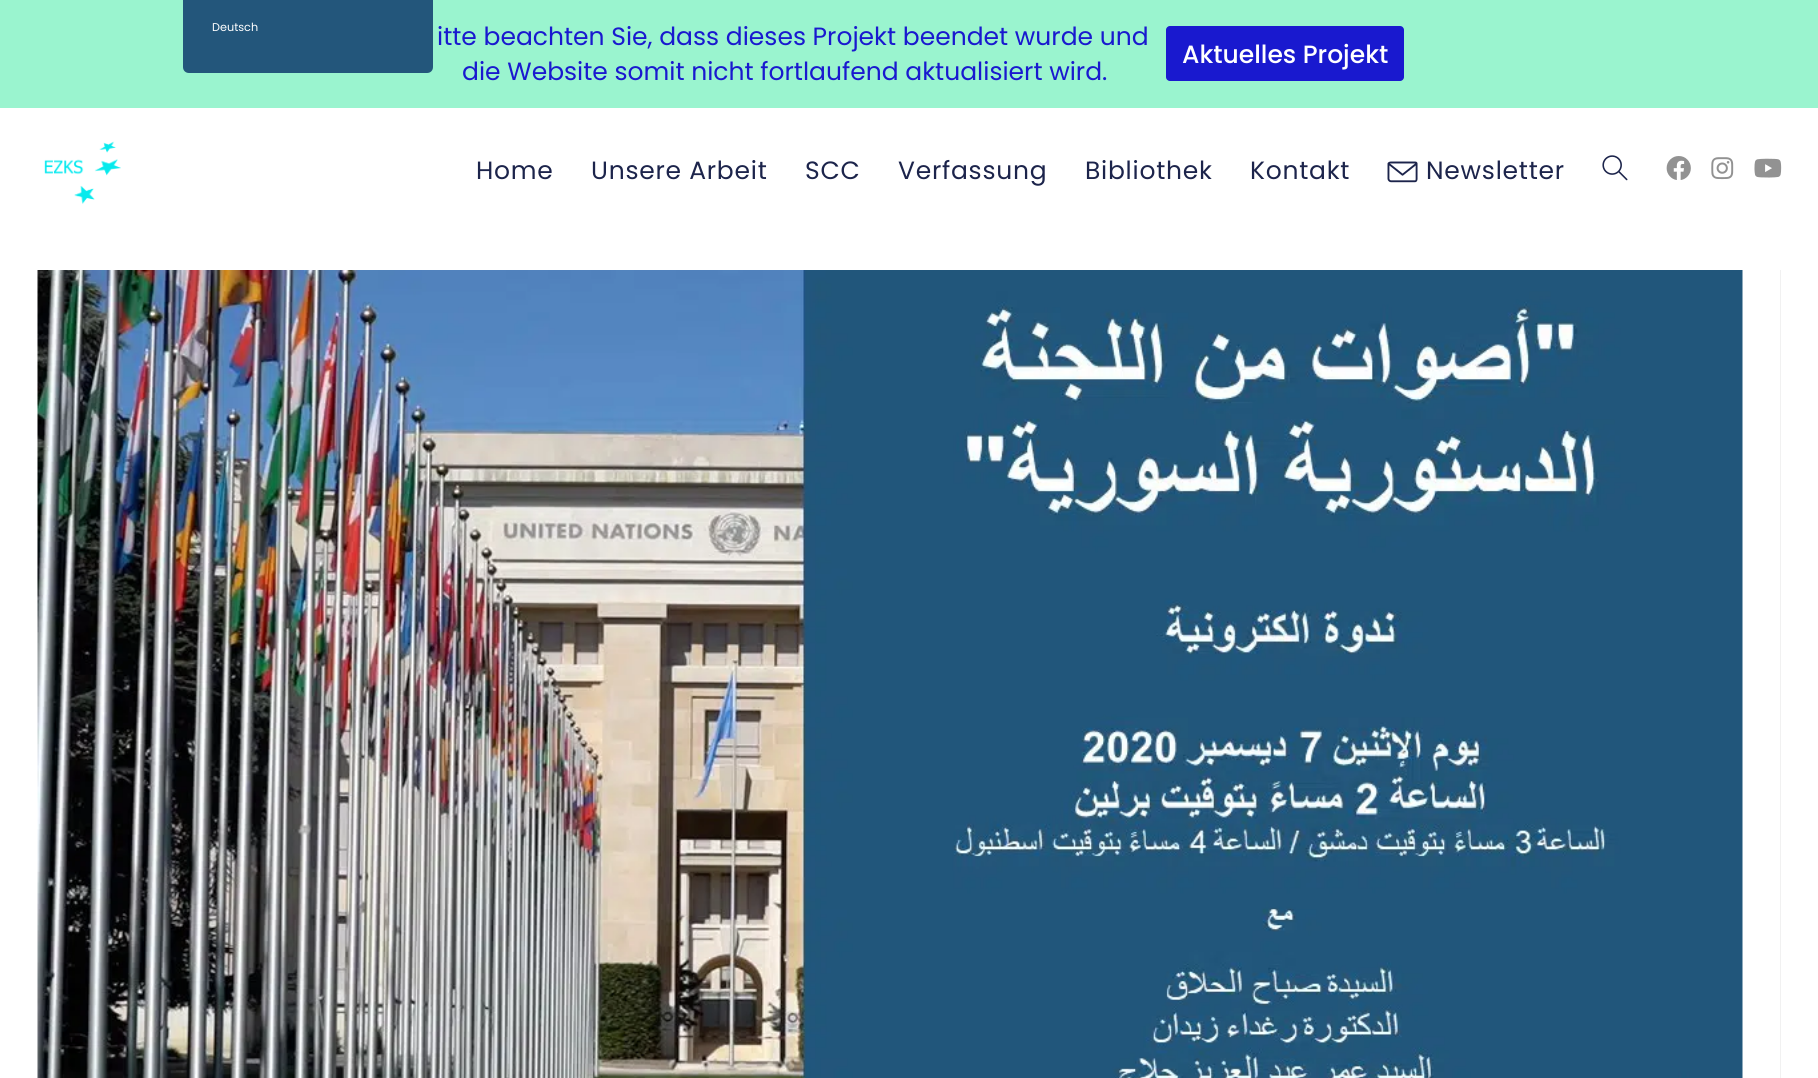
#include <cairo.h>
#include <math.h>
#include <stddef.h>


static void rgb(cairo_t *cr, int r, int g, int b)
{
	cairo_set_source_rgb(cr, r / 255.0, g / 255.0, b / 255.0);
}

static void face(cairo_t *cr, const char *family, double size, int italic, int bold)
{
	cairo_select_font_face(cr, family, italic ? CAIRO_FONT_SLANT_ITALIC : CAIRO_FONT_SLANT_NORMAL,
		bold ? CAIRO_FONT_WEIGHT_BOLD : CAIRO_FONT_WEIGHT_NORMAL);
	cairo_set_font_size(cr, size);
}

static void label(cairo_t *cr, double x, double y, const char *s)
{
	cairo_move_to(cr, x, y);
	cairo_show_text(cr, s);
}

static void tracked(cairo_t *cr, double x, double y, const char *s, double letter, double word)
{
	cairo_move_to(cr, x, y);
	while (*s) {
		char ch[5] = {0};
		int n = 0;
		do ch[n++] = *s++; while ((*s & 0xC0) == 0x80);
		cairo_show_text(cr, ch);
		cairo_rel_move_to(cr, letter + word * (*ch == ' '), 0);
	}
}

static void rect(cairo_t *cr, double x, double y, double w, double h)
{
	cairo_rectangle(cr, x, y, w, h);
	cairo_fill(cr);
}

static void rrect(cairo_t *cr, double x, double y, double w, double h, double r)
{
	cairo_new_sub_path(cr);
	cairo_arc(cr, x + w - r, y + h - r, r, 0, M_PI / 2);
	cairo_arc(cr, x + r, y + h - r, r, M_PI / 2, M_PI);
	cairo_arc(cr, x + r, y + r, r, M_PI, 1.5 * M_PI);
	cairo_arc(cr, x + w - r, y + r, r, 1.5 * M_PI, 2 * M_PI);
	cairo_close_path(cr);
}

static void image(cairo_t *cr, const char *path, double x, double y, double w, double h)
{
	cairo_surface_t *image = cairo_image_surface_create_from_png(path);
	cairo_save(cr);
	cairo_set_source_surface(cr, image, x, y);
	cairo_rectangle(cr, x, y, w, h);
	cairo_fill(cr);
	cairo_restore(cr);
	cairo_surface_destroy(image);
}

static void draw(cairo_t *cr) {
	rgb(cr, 255, 255, 255);
	cairo_paint(cr);
	rgb(cr, 154, 244, 207);
	rect(cr, 0, 0, 1818, 108);
	rgb(cr, 35, 86, 123);
	cairo_new_path(cr);
	cairo_move_to(cr, 183, 0);
	cairo_line_to(cr, 433, 0);
	cairo_line_to(cr, 433, 67);
	cairo_curve_to(cr, 433, 70.5, 430.5, 73, 427, 73);
	cairo_line_to(cr, 189, 73);
	cairo_curve_to(cr, 185.5, 73, 183, 70.5, 183, 67);
	cairo_close_path(cr);
	cairo_fill(cr);
	face(cr, "Poppins", 11.25, 0, 0);
	rgb(cr, 255, 255, 255);
	label(cr, 212, 31, "Deutsch");
	face(cr, "Poppins", 25, 0, 0);
	rgb(cr, 25, 25, 207);
	label(cr, 437, 45, "itte beachten Sie, dass dieses Projekt beendet wurde und");
	label(cr, 462, 80, "die Website somit nicht fortlaufend aktualisiert wird.");
	rrect(cr, 1166, 26, 238, 55, 4);
	cairo_fill(cr);
	face(cr, "Poppins Medium", 25, 0, 0);
	rgb(cr, 255, 255, 255);
	label(cr, 1182, 63, "Aktuelles Projekt");
	image(cr, "image0.png", 44, 141, 77, 63);
	face(cr, "Poppins", 25, 0, 0);
	rgb(cr, 28, 36, 75);
	tracked(cr, 476, 179, "Home", 0.75, 0);
	tracked(cr, 591, 179, "Unsere Arbeit", 0.75, 0);
	tracked(cr, 805, 179, "SCC", 0.75, 0);
	tracked(cr, 898, 179, "Verfassung", 0.75, 0);
	tracked(cr, 1085, 179, "Bibliothek", 0.75, 0);
	tracked(cr, 1250, 179, "Kontakt", 0.75, 0);
	image(cr, "image1.png", 1387, 161, 31, 22);
	tracked(cr, 1426, 179, "Newsletter", 0.75, 0);
	image(cr, "image2.png", 1602, 155, 26, 26);
	image(cr, "image3.png", 1666, 156, 25, 24);
	image(cr, "image4.png", 1711, 157, 23, 23);
	image(cr, "image5.png", 1754, 158, 28, 20);
	rgb(cr, 241, 241, 241);
	rect(cr, 1780, 270, 1, 808);
	image(cr, "image6.png", 37, 270, 1706, 808);
}

int main(void) {
	cairo_surface_t *surface = cairo_image_surface_create(CAIRO_FORMAT_RGB24, 1818, 1078);
	cairo_t *cr = cairo_create(surface);
	cairo_font_options_t *options = cairo_font_options_create();
	cairo_font_options_set_hint_metrics(options, CAIRO_HINT_METRICS_OFF);
	cairo_font_options_set_hint_style(options, CAIRO_HINT_STYLE_NONE);
	cairo_set_font_options(cr, options);
	cairo_set_miter_limit(cr, 4);
	draw(cr);
	cairo_surface_write_to_png(surface, "render.png");
	cairo_font_options_destroy(options);
	cairo_destroy(cr);
	cairo_surface_destroy(surface);
	return 0;
}
